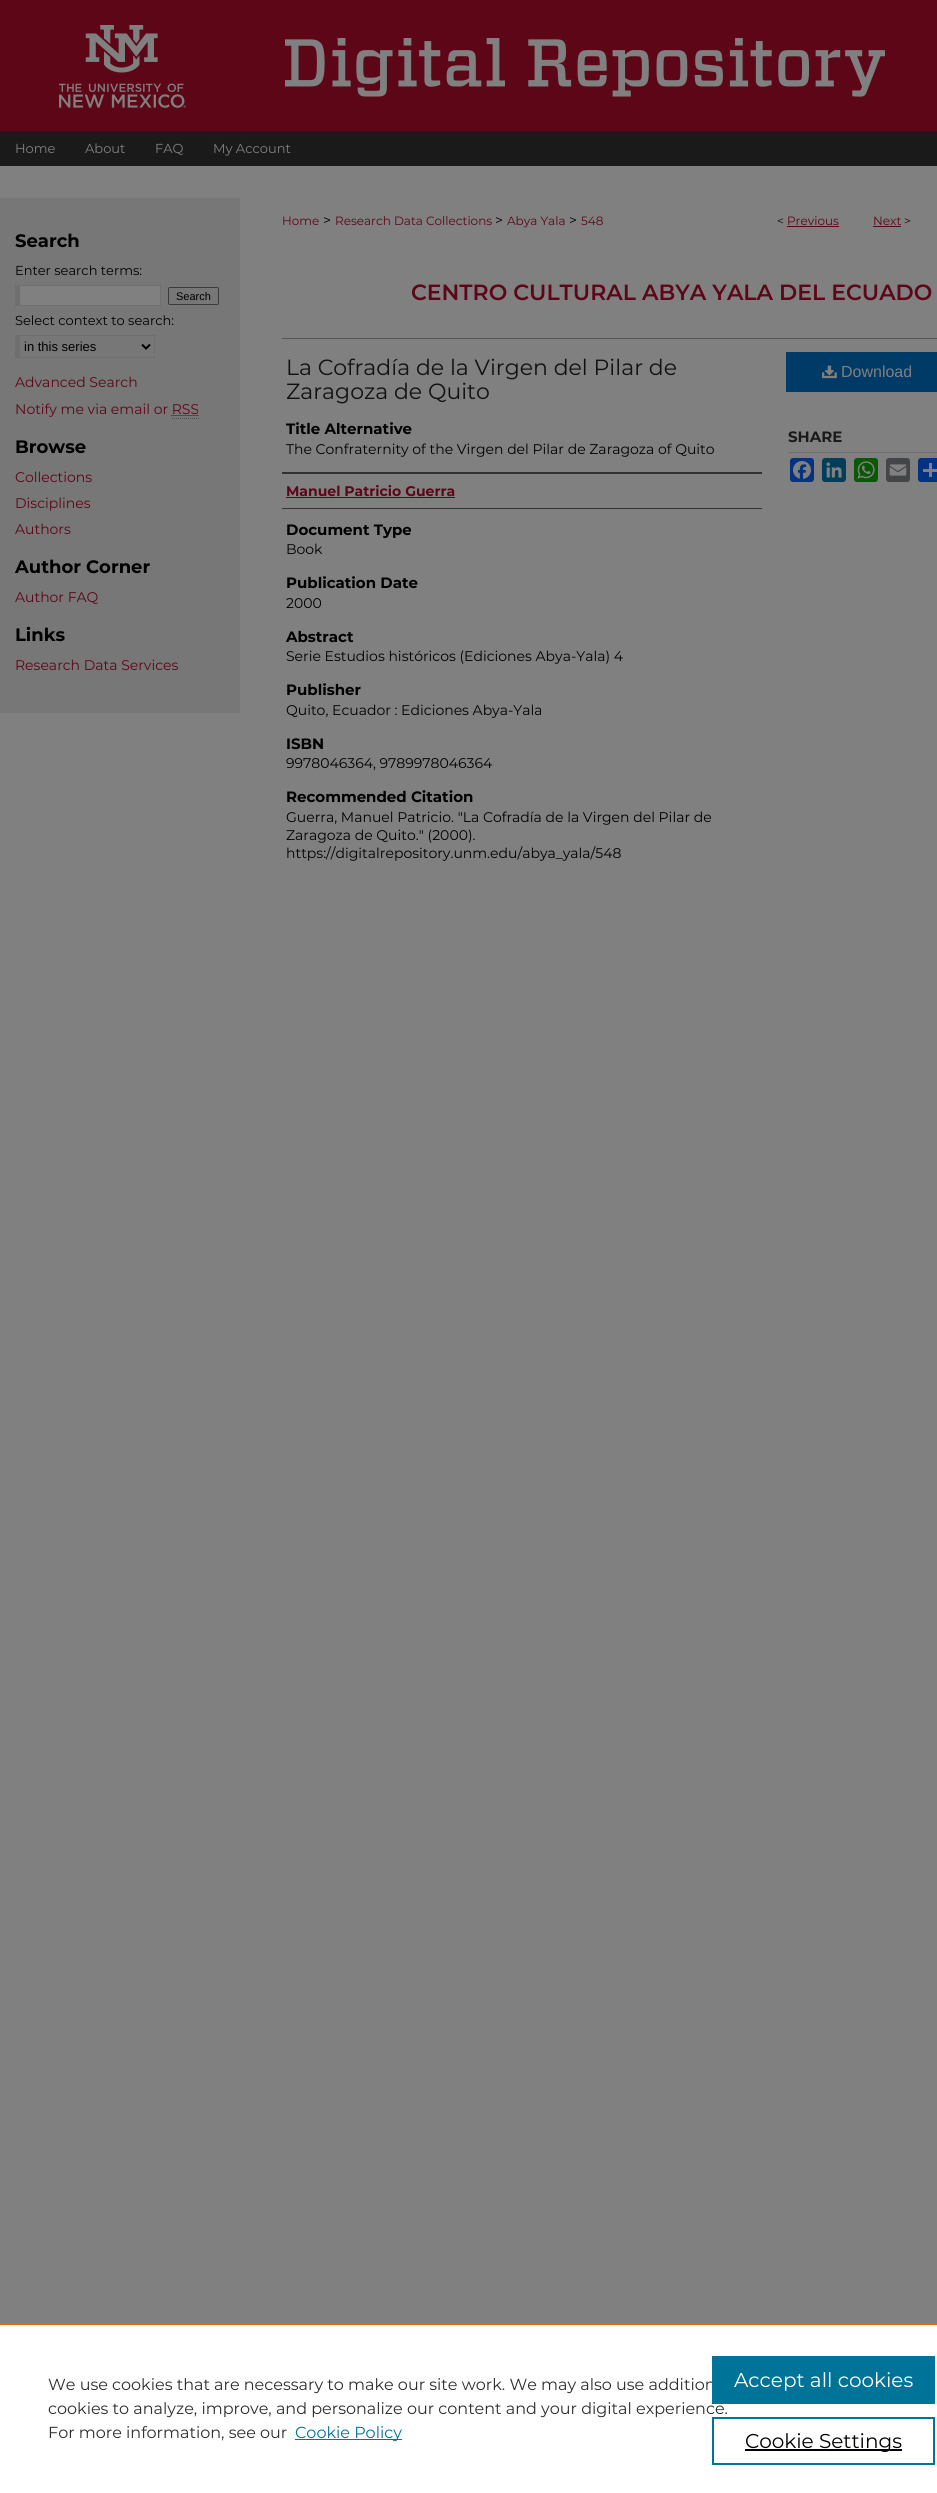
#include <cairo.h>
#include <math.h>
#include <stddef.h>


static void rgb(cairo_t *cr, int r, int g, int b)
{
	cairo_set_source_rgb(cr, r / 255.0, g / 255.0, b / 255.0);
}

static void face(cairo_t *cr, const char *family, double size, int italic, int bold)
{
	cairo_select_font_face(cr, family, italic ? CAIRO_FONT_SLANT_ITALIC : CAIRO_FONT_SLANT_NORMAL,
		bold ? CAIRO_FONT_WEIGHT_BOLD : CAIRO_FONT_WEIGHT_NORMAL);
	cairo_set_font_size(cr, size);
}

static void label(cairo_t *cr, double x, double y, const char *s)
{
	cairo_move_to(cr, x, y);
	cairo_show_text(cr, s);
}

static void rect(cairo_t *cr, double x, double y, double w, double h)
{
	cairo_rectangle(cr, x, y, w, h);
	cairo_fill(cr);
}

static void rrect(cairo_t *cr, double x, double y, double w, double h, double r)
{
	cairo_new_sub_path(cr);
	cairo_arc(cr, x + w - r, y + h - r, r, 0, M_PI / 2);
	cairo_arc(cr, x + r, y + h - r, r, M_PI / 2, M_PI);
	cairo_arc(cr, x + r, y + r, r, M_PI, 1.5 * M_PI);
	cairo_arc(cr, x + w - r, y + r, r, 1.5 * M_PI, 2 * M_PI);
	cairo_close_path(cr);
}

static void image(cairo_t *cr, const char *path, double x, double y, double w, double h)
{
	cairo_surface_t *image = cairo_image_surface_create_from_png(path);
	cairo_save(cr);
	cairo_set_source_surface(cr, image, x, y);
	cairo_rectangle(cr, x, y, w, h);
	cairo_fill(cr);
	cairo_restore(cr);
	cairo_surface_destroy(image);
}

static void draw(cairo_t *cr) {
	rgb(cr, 128, 128, 128);
	cairo_paint(cr);
	image(cr, "image0.png", 0, 0, 937, 166);
	image(cr, "image1.png", 59, 25, 127, 83);
	image(cr, "image2.png", 285, 38, 600, 59);
	face(cr, "Montserrat", 13, 0, 0);
	rgb(cr, 128, 128, 128);
	label(cr, 15, 153, "Home");
	label(cr, 85, 153, "About");
	label(cr, 155, 153, "FAQ");
	label(cr, 213, 153, "My Account");
	rgb(cr, 119, 119, 119);
	rect(cr, 0, 198, 240, 515);
	face(cr, "Montserrat", 18, 0, 1);
	rgb(cr, 0, 0, 0);
	label(cr, 15, 247, "Search");
	face(cr, "Montserrat", 13, 0, 0);
	label(cr, 15, 275, "Enter search terms:");
	rgb(cr, 128, 128, 128);
	rect(cr, 20, 286, 140, 19);
	rgb(cr, 111, 111, 111);
	rect(cr, 15, 285, 146, 1);
	rect(cr, 160, 285, 1, 21);
	rect(cr, 15, 305, 146, 1);
	rect(cr, 15, 285, 5, 21);
	rrect(cr, 168.5, 287.5, 50, 17, 1.5);
	rgb(cr, 59, 59, 59);
	cairo_set_line_width(cr, 1);
	cairo_stroke(cr);
	face(cr, "Liberation Sans", 11, 0, 0);
	rgb(cr, 0, 0, 0);
	label(cr, 176, 300, "Search");
	face(cr, "Montserrat", 13, 0, 0);
	label(cr, 15, 325, "Select context to search:");
	rgb(cr, 111, 111, 111);
	rect(cr, 15, 335, 140, 1);
	rect(cr, 154, 335, 1, 23);
	rect(cr, 15, 357, 140, 1);
	rect(cr, 15, 335, 5, 23);
	cairo_new_path(cr);
	cairo_move_to(cr, 142, 344.5);
	cairo_line_to(cr, 146, 348.5);
	cairo_line_to(cr, 150, 344.5);
	rgb(cr, 0, 0, 0);
	cairo_set_line_width(cr, 2);
	cairo_stroke(cr);
	face(cr, "Liberation Sans", 13, 0, 0);
	label(cr, 24, 351, "in this series");
	face(cr, "Montserrat", 14, 0, 0);
	rgb(cr, 93, 6, 24);
	label(cr, 15, 387, "Advanced Search");
	label(cr, 15, 414, "Notify me via email or RSS");
	cairo_new_path(cr);
	cairo_move_to(cr, 171.5, 415.5);
	cairo_line_to(cr, 199, 415.5);
	cairo_set_line_width(cr, 1);
	cairo_set_dash(cr, (double[]){1, 1}, 2, 0);
	cairo_stroke(cr);
	cairo_new_path(cr);
	cairo_move_to(cr, 172, 418.5);
	cairo_line_to(cr, 199, 418.5);
	rgb(cr, 77, 77, 77);
	cairo_stroke(cr);
	face(cr, "Montserrat", 18, 0, 1);
	rgb(cr, 0, 0, 0);
	label(cr, 15, 453, "Browse");
	face(cr, "Montserrat", 14, 0, 0);
	rgb(cr, 93, 6, 24);
	label(cr, 15, 482, "Collections");
	label(cr, 15, 508, "Disciplines");
	label(cr, 15, 534, "Authors");
	face(cr, "Montserrat", 18, 0, 1);
	rgb(cr, 0, 0, 0);
	label(cr, 15, 573, "Author Corner");
	face(cr, "Montserrat", 14, 0, 0);
	rgb(cr, 93, 6, 24);
	label(cr, 15, 602, "Author FAQ");
	face(cr, "Montserrat", 18, 0, 1);
	rgb(cr, 0, 0, 0);
	label(cr, 15, 641, "Links");
	face(cr, "Montserrat", 14, 0, 0);
	rgb(cr, 93, 6, 24);
	label(cr, 15, 670, "Research Data Services");
	face(cr, "Montserrat", 12, 0, 0);
	label(cr, 282, 225, "Home");
	face(cr, "Montserrat", 14, 0, 0);
	rgb(cr, 0, 0, 0);
	label(cr, 323, 225, ">");
	face(cr, "Montserrat", 12, 0, 0);
	rgb(cr, 93, 6, 24);
	label(cr, 335, 225, "Research Data Collections");
	face(cr, "Montserrat", 14, 0, 0);
	rgb(cr, 0, 0, 0);
	label(cr, 495, 225, ">");
	face(cr, "Montserrat", 12, 0, 0);
	rgb(cr, 93, 6, 24);
	label(cr, 507, 225, "Abya Yala");
	face(cr, "Montserrat", 14, 0, 0);
	rgb(cr, 0, 0, 0);
	label(cr, 569, 225, ">");
	face(cr, "Montserrat", 12, 0, 0);
	rgb(cr, 93, 6, 24);
	label(cr, 581, 225, "548");
	rgb(cr, 17, 17, 17);
	label(cr, 777, 225, "<");
	rgb(cr, 93, 6, 24);
	label(cr, 787, 225, "Previous");
	rect(cr, 787, 226, 52, 1);
	label(cr, 873, 225, "Next");
	rect(cr, 873, 226, 28, 1);
	rgb(cr, 17, 17, 17);
	label(cr, 904, 225, ">");
	face(cr, "Montserrat SemiBold", 22, 0, 0);
	rgb(cr, 93, 6, 24);
	label(cr, 411, 300, "CENTRO CULTURAL ABYA YALA DEL ECUADO");
	rgb(cr, 85, 85, 85);
	rect(cr, 282, 338, 655, 1);
	face(cr, "Montserrat", 22, 0, 0);
	rgb(cr, 17, 17, 17);
	label(cr, 286, 375, "La Cofradía de la Virgen del Pilar de");
	label(cr, 286, 399, "Zaragoza de Quito");
	face(cr, "Montserrat", 15, 0, 1);
	rgb(cr, 0, 0, 0);
	label(cr, 286, 434, "Title Alternative");
	face(cr, "Montserrat", 14, 0, 0);
	label(cr, 286, 454, "The Confraternity of the Virgen del Pilar de Zaragoza of Quito");
	rgb(cr, 51, 51, 51);
	rect(cr, 282, 472, 480, 2);
	rect(cr, 282, 508, 480, 1);
	face(cr, "Montserrat", 14, 0, 1);
	rgb(cr, 93, 6, 24);
	label(cr, 286, 496, "Manuel Patricio Guerra");
	rect(cr, 286, 497, 169, 1);
	face(cr, "Montserrat", 15, 0, 1);
	rgb(cr, 0, 0, 0);
	label(cr, 286, 535, "Document Type");
	face(cr, "Montserrat", 14, 0, 0);
	label(cr, 286, 554, "Book");
	face(cr, "Montserrat", 15, 0, 1);
	label(cr, 286, 588, "Publication Date");
	face(cr, "Montserrat", 14, 0, 0);
	label(cr, 286, 608, "2000");
	face(cr, "Montserrat", 15, 0, 1);
	label(cr, 286, 642, "Abstract");
	face(cr, "Montserrat", 14, 0, 0);
	label(cr, 286, 661, "Serie Estudios históricos (Ediciones Abya-Yala) 4");
	face(cr, "Montserrat", 15, 0, 1);
	label(cr, 286, 695, "Publisher");
	face(cr, "Montserrat", 14, 0, 0);
	label(cr, 286, 715, "Quito, Ecuador : Ediciones Abya-Yala");
	face(cr, "Montserrat", 15, 0, 1);
	label(cr, 286, 749, "ISBN");
	face(cr, "Montserrat", 14, 0, 0);
	label(cr, 286, 768, "9978046364, 9789978046364");
	face(cr, "Montserrat", 15, 0, 1);
	label(cr, 286, 802, "Recommended Citation");
	face(cr, "Montserrat", 14, 0, 0);
	label(cr, 286, 822, "Guerra, Manuel Patricio. \"La Cofradía de la Virgen del Pilar de");
	label(cr, 286, 840, "Zaragoza de Quito.\" (2000).");
	label(cr, 286, 858, "https://digitalrepository.unm.edu/abya_yala/548");
	rgb(cr, 0, 58, 102);
	rect(cr, 786, 352, 151, 40);
	image(cr, "image3.png", 822, 365, 15, 14);
	face(cr, "Liberation Sans", 16, 0, 0);
	rgb(cr, 128, 128, 128);
	label(cr, 841, 377, "Download");
	rgb(cr, 111, 111, 111);
	rect(cr, 788, 452, 149, 1);
	face(cr, "Montserrat", 15, 0, 1);
	rgb(cr, 26, 26, 26);
	label(cr, 788, 442, "SHARE");
	rgb(cr, 4, 51, 128);
	rrect(cr, 790, 458, 24, 24, 3);
	cairo_fill(cr);
	image(cr, "image4.png", 793, 461, 18, 18);
	rgb(cr, 0, 62, 91);
	rrect(cr, 822, 458, 24, 24, 3);
	cairo_fill(cr);
	image(cr, "image5.png", 826, 462, 16, 16);
	rgb(cr, 9, 88, 5);
	rrect(cr, 854, 458, 24, 24, 3);
	cairo_fill(cr);
	image(cr, "image6.png", 857, 461, 18, 18);
	rgb(cr, 68, 69, 72);
	rrect(cr, 886, 458, 24, 24, 3);
	cairo_fill(cr);
	image(cr, "image7.png", 889, 464, 18, 12);
	rgb(cr, 1, 51, 128);
	rrect(cr, 918, 458, 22, 24, 3);
	cairo_fill(cr);
	rgb(cr, 128, 128, 128);
	rect(cr, 929, 463, 3, 14);
	rect(cr, 923, 469, 14, 3);
	rgb(cr, 255, 255, 255);
	rect(cr, 0, 2325, 937, 168);
	rgb(cr, 235, 101, 0);
	rect(cr, 0, 2323, 937, 2);
	face(cr, "Montserrat", 16, 0, 0);
	rgb(cr, 46, 46, 46);
	label(cr, 48, 2390, "We use cookies that are necessary to make our site work. We may also use addition");
	label(cr, 48, 2414, "cookies to analyze, improve, and personalize our content and your digital experience.");
	label(cr, 48, 2438, "For more information, see our");
	rgb(cr, 0, 115, 152);
	rect(cr, 295, 2439, 107, 1);
	label(cr, 295, 2438, "Cookie Policy");
	rect(cr, 712, 2356, 223, 48);
	face(cr, "Montserrat", 20, 0, 0);
	rgb(cr, 255, 255, 255);
	label(cr, 734, 2387, "Accept all cookies");
	cairo_rectangle(cr, 713, 2418, 221, 46);
	rgb(cr, 0, 115, 152);
	cairo_set_line_width(cr, 2);
	cairo_set_dash(cr, NULL, 0, 0);
	cairo_stroke(cr);
	rgb(cr, 0, 0, 0);
	rect(cr, 745, 2449, 157, 2);
	label(cr, 745, 2448, "Cookie Settings");
}

int main(void) {
	cairo_surface_t *surface = cairo_image_surface_create(CAIRO_FORMAT_RGB24, 937, 2493);
	cairo_t *cr = cairo_create(surface);
	cairo_font_options_t *options = cairo_font_options_create();
	cairo_font_options_set_hint_metrics(options, CAIRO_HINT_METRICS_OFF);
	cairo_font_options_set_hint_style(options, CAIRO_HINT_STYLE_NONE);
	cairo_set_font_options(cr, options);
	cairo_set_miter_limit(cr, 4);
	draw(cr);
	cairo_surface_write_to_png(surface, "render.png");
	cairo_font_options_destroy(options);
	cairo_destroy(cr);
	cairo_surface_destroy(surface);
	return 0;
}
